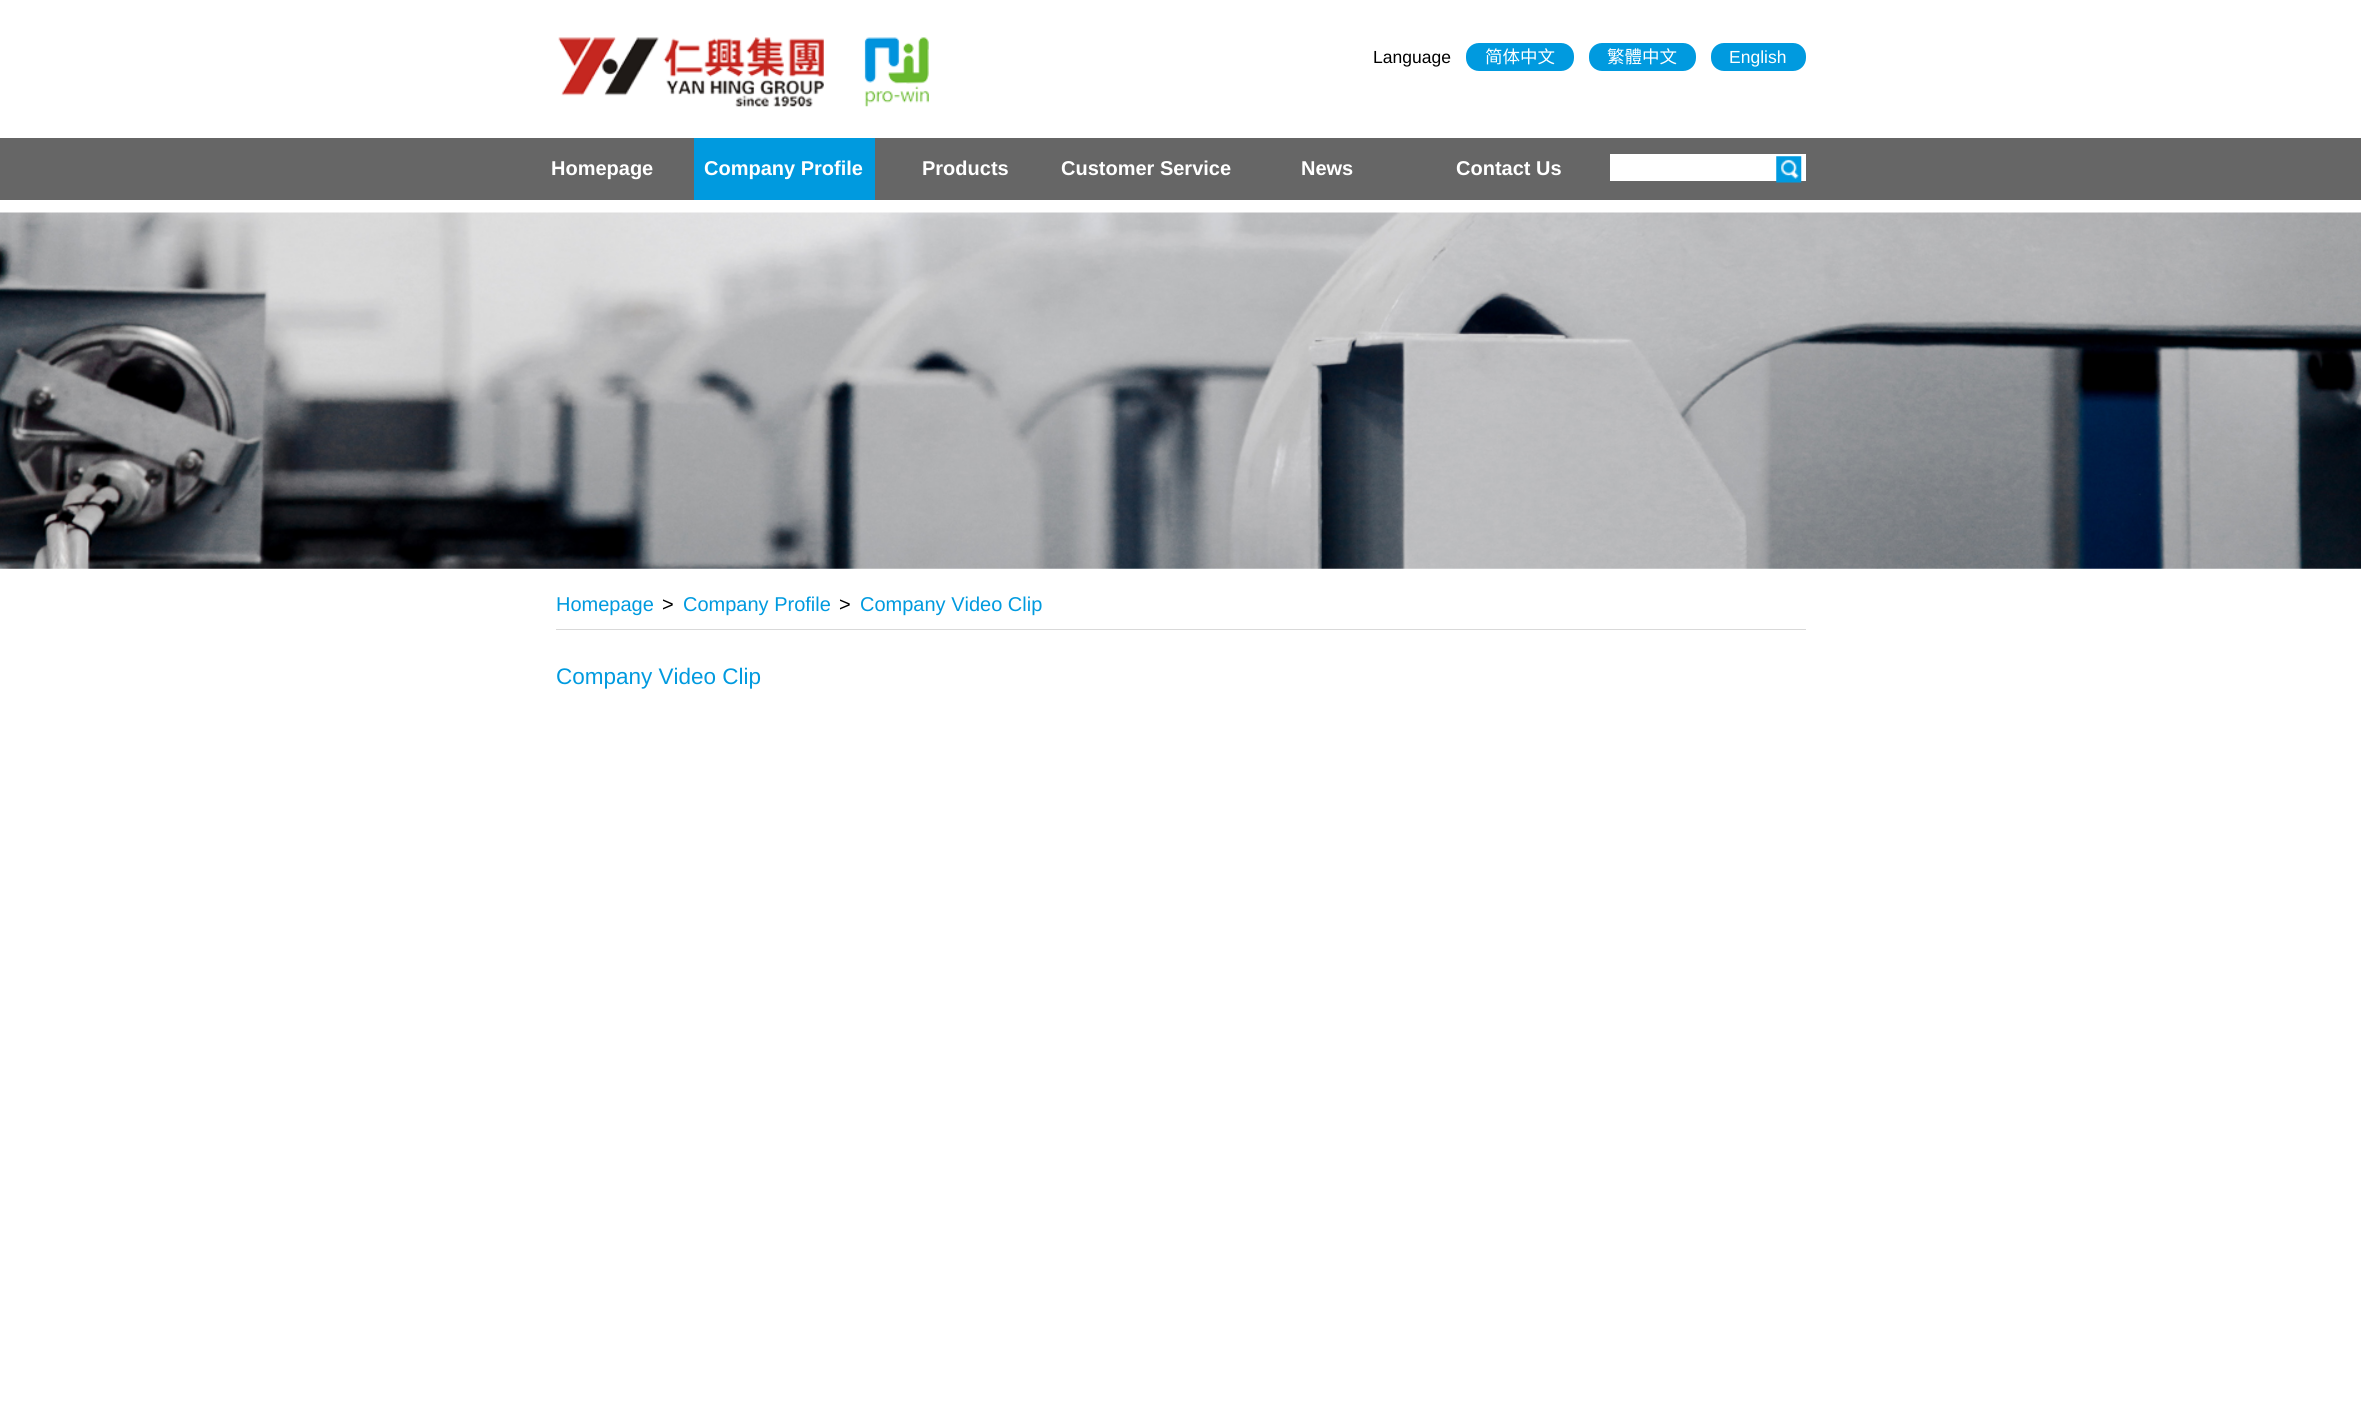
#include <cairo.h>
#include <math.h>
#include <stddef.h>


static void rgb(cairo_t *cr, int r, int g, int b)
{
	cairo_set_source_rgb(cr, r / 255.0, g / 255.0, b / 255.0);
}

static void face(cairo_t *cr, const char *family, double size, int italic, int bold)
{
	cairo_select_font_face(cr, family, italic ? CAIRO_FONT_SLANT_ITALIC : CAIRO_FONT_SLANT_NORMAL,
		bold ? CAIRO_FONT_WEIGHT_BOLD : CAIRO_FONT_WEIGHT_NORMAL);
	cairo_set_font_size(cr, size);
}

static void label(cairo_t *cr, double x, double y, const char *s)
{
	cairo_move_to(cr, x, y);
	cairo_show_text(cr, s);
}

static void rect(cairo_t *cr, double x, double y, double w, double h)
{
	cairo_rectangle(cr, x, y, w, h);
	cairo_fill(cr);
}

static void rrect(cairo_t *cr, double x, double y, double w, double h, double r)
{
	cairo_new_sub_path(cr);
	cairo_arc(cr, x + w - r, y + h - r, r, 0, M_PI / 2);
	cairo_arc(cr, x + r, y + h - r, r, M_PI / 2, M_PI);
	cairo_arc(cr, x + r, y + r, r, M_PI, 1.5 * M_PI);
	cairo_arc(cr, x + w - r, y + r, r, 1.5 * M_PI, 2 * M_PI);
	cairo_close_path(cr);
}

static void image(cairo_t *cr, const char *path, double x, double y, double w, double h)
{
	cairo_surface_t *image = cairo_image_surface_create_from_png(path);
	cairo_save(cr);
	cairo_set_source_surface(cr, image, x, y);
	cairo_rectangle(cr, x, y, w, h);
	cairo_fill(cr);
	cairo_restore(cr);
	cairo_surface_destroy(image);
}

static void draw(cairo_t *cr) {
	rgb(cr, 255, 255, 255);
	cairo_paint(cr);
	image(cr, "image0.png", 558, 37, 266, 70);
	image(cr, "image1.png", 864, 37, 65, 70);
	face(cr, "Liberation Sans", 17.5, 0, 0);
	rgb(cr, 0, 0, 0);
	label(cr, 1373, 63, "Language");
	rgb(cr, 0, 154, 223);
	rrect(cr, 1466, 43, 108, 28, 13);
	cairo_fill(cr);
	face(cr, "Noto Sans CJK SC", 17.5, 0, 0);
	rgb(cr, 255, 255, 255);
	label(cr, 1485, 63, "简体中文");
	rgb(cr, 0, 154, 223);
	rrect(cr, 1589, 43, 107, 28, 13);
	cairo_fill(cr);
	rgb(cr, 255, 255, 255);
	label(cr, 1607, 63, "繁體中文");
	rgb(cr, 0, 154, 223);
	rrect(cr, 1711, 43, 95, 28, 13);
	cairo_fill(cr);
	face(cr, "Liberation Sans", 17.5, 0, 0);
	rgb(cr, 255, 255, 255);
	label(cr, 1729, 63, "English");
	rgb(cr, 102, 102, 102);
	rect(cr, 0, 138, 2361, 62);
	face(cr, "Liberation Sans", 20, 0, 1);
	rgb(cr, 255, 255, 255);
	label(cr, 551, 175, "Homepage");
	rgb(cr, 0, 154, 223);
	rect(cr, 694, 138, 181, 62);
	rgb(cr, 255, 255, 255);
	label(cr, 704, 175, "Company Profile");
	label(cr, 922, 175, "Products");
	label(cr, 1061, 175, "Customer Service");
	label(cr, 1301, 175, "News");
	label(cr, 1456, 175, "Contact Us");
	rect(cr, 1610, 154, 196, 27);
	image(cr, "image2.png", 1776, 156, 26, 27);
	image(cr, "image3.png", 0, 212, 2361, 357);
	rgb(cr, 217, 217, 217);
	rect(cr, 556, 629, 1250, 1);
	face(cr, "Liberation Sans", 20, 0, 0);
	rgb(cr, 0, 154, 223);
	label(cr, 556, 611, "Homepage");
	rgb(cr, 0, 0, 0);
	label(cr, 662, 611, ">");
	rgb(cr, 0, 154, 223);
	label(cr, 683, 611, "Company Profile");
	rgb(cr, 0, 0, 0);
	label(cr, 839, 611, ">");
	rgb(cr, 0, 154, 223);
	label(cr, 860, 611, "Company Video Clip");
	face(cr, "Liberation Sans", 22.5, 0, 0);
	label(cr, 556, 684, "Company Video Clip");
}

int main(void) {
	cairo_surface_t *surface = cairo_image_surface_create(CAIRO_FORMAT_RGB24, 2361, 1409);
	cairo_t *cr = cairo_create(surface);
	cairo_font_options_t *options = cairo_font_options_create();
	cairo_font_options_set_hint_metrics(options, CAIRO_HINT_METRICS_OFF);
	cairo_font_options_set_hint_style(options, CAIRO_HINT_STYLE_NONE);
	cairo_set_font_options(cr, options);
	cairo_set_miter_limit(cr, 4);
	draw(cr);
	cairo_surface_write_to_png(surface, "render.png");
	cairo_font_options_destroy(options);
	cairo_destroy(cr);
	cairo_surface_destroy(surface);
	return 0;
}
